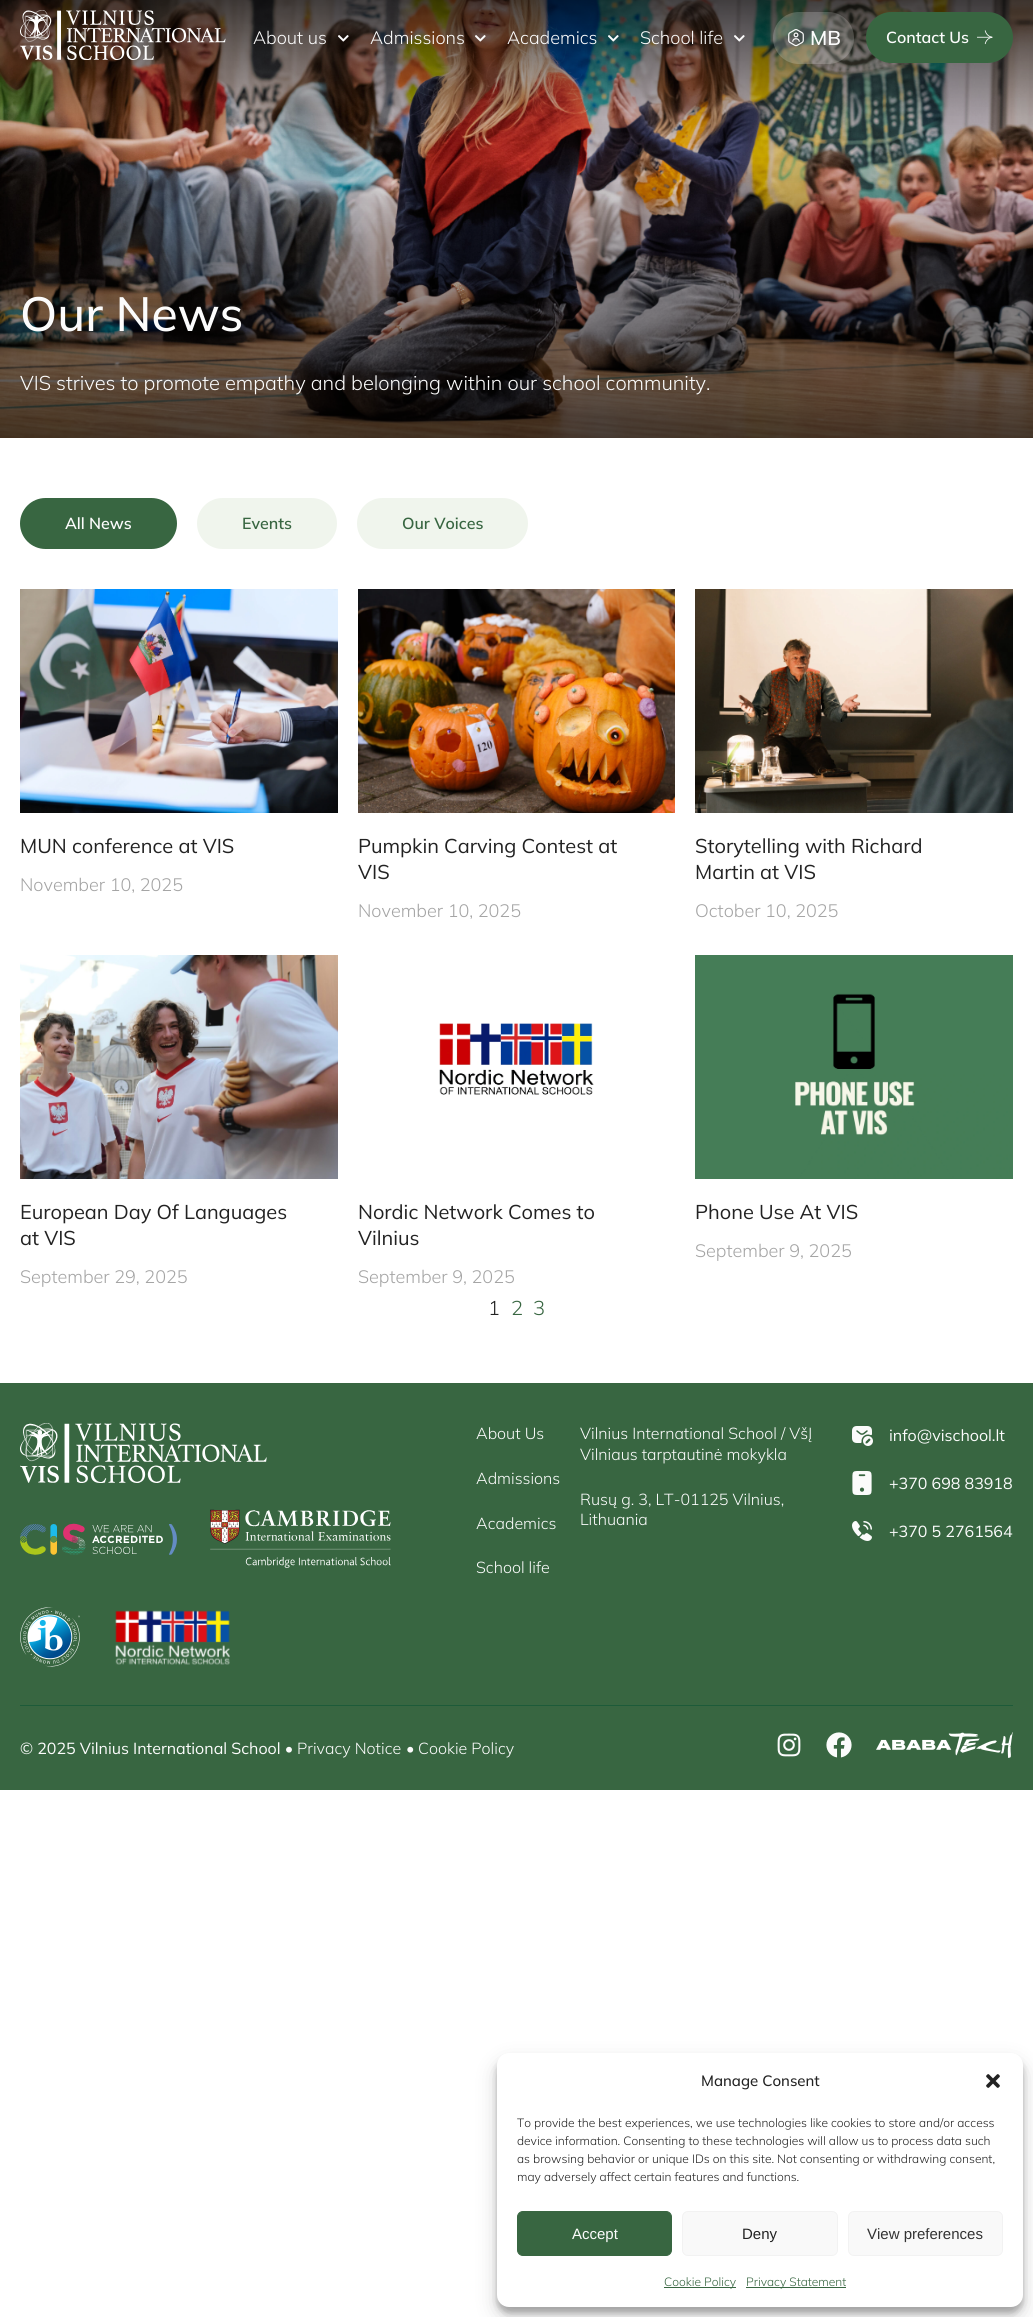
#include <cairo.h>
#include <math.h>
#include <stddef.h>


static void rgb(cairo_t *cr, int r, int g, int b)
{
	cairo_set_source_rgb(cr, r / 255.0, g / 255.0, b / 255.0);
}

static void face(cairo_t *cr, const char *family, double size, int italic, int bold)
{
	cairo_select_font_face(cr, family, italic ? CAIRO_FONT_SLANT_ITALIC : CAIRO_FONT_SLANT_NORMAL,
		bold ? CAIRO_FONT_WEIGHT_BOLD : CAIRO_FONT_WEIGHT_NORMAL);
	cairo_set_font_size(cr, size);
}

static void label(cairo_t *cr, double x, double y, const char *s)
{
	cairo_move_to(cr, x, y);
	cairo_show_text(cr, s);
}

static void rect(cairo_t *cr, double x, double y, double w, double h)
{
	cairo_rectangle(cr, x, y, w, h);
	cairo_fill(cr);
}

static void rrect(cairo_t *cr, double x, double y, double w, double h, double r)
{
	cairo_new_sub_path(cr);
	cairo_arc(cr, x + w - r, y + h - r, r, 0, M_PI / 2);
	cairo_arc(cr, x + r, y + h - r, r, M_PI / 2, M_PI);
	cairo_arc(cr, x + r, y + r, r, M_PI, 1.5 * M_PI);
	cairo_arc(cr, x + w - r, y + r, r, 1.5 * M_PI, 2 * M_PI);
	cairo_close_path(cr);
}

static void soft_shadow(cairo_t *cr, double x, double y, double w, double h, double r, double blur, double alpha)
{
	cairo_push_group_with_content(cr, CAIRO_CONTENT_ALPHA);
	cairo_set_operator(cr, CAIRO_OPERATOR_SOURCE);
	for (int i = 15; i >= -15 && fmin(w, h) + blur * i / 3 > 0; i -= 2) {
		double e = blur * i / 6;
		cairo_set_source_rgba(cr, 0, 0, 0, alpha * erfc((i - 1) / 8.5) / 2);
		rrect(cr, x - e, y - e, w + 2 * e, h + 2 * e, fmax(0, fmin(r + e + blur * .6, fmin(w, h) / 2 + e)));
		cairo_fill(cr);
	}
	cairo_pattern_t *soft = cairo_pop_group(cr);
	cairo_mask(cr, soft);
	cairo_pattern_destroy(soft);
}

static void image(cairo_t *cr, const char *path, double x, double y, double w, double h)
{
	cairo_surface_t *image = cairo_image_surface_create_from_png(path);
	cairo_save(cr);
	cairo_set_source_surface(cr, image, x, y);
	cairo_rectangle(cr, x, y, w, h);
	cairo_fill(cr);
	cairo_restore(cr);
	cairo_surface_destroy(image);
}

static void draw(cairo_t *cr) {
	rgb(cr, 255, 255, 255);
	cairo_paint(cr);
	image(cr, "image7.png", 0, 0, 1033, 438);
	image(cr, "image0.png", 20, 10, 206, 50);
	face(cr, "Mulish Light", 18, 0, 0);
	rgb(cr, 252, 252, 252);
	label(cr, 253, 44, "About us");
	image(cr, "image1.png", 338, 35, 11, 7);
	label(cr, 370, 44, "Admissions");
	image(cr, "image2.png", 475, 35, 11, 7);
	label(cr, 507, 44, "Academics");
	image(cr, "image3.png", 608, 35, 11, 7);
	label(cr, 640, 44, "School life");
	image(cr, "image4.png", 734, 35, 11, 7);
	cairo_set_source_rgba(cr, 1, 1, 1, 0.2);
	rrect(cr, 773, 12, 81, 52, 26);
	cairo_fill(cr);
	image(cr, "image5.png", 788, 29, 16, 18);
	face(cr, "Mulish SemiBold", 20, 0, 0);
	rgb(cr, 252, 252, 252);
	label(cr, 810, 45, "MB");
	rgb(cr, 56, 102, 65);
	rrect(cr, 866, 12, 147, 51, 25.5);
	cairo_fill(cr);
	face(cr, "Mulish SemiBold", 16, 0, 0);
	rgb(cr, 252, 252, 252);
	label(cr, 886, 43, "Contact Us");
	image(cr, "image6.png", 977, 30, 16, 15);
	face(cr, "Mulish Medium", 48, 0, 0);
	label(cr, 20, 331, "Our News");
	face(cr, "Mulish Light", 20, 0, 0);
	label(cr, 20, 390, "VIS strives to promote empathy and belonging within our school community.");
	rgb(cr, 56, 102, 65);
	rrect(cr, 20, 498, 157, 51, 25.5);
	cairo_fill(cr);
	face(cr, "Mulish SemiBold", 16, 0, 0);
	rgb(cr, 252, 252, 252);
	label(cr, 65, 529, "All News");
	rgb(cr, 240, 245, 237);
	rrect(cr, 197, 498, 140, 51, 25.5);
	cairo_fill(cr);
	rgb(cr, 56, 102, 65);
	label(cr, 242, 529, "Events");
	rgb(cr, 240, 245, 237);
	rrect(cr, 357, 498, 171, 51, 25.5);
	cairo_fill(cr);
	rgb(cr, 56, 102, 65);
	label(cr, 402, 529, "Our Voices");
	image(cr, "image8.png", 20, 589, 318, 224);
	face(cr, "Mulish", 20, 0, 0);
	rgb(cr, 34, 34, 34);
	label(cr, 20, 853, "MUN conference at VIS");
	face(cr, "Mulish Light", 18, 0, 0);
	rgb(cr, 164, 164, 164);
	label(cr, 20, 891, "November 10, 2025");
	image(cr, "image9.png", 358, 589, 317, 224);
	face(cr, "Mulish", 20, 0, 0);
	rgb(cr, 34, 34, 34);
	label(cr, 358, 853, "Pumpkin Carving Contest at");
	label(cr, 358, 879, "VIS");
	face(cr, "Mulish Light", 18, 0, 0);
	rgb(cr, 164, 164, 164);
	label(cr, 358, 917, "November 10, 2025");
	image(cr, "image10.png", 695, 589, 318, 224);
	face(cr, "Mulish", 20, 0, 0);
	rgb(cr, 34, 34, 34);
	label(cr, 695, 853, "Storytelling with Richard");
	label(cr, 695, 879, "Martin at VIS");
	face(cr, "Mulish Light", 18, 0, 0);
	rgb(cr, 164, 164, 164);
	label(cr, 695, 917, "October 10, 2025");
	image(cr, "image11.png", 20, 955, 318, 224);
	face(cr, "Mulish", 20, 0, 0);
	rgb(cr, 34, 34, 34);
	label(cr, 20, 1219, "European Day Of Languages");
	label(cr, 20, 1245, "at VIS");
	face(cr, "Mulish Light", 18, 0, 0);
	rgb(cr, 164, 164, 164);
	label(cr, 20, 1283, "September 29, 2025");
	image(cr, "image12.png", 439, 1023, 155, 72);
	face(cr, "Mulish", 20, 0, 0);
	rgb(cr, 34, 34, 34);
	label(cr, 358, 1219, "Nordic Network Comes to");
	label(cr, 358, 1245, "Vilnius");
	face(cr, "Mulish Light", 18, 0, 0);
	rgb(cr, 164, 164, 164);
	label(cr, 358, 1283, "September 9, 2025");
	image(cr, "image13.png", 695, 955, 318, 224);
	face(cr, "Mulish", 20, 0, 0);
	rgb(cr, 34, 34, 34);
	label(cr, 695, 1219, "Phone Use At VIS");
	face(cr, "Mulish Light", 18, 0, 0);
	rgb(cr, 164, 164, 164);
	label(cr, 695, 1257, "September 9, 2025");
	face(cr, "Mulish Light", 20, 0, 0);
	rgb(cr, 34, 34, 34);
	label(cr, 488, 1315, "1");
	rgb(cr, 56, 102, 65);
	label(cr, 511, 1315, "2");
	label(cr, 533, 1315, "3");
	rect(cr, 0, 1383, 1033, 407);
	image(cr, "image14.png", 20, 1423, 247, 60);
	image(cr, "image15.png", 20, 1523, 157, 32);
	image(cr, "image16.png", 210, 1509, 181, 59);
	image(cr, "image17.png", 20, 1607, 60, 60);
	image(cr, "image18.png", 115, 1610, 115, 55);
	face(cr, "Mulish Light", 16, 0, 0);
	rgb(cr, 252, 252, 252);
	label(cr, 476, 1439, "About Us");
	label(cr, 476, 1484, "Admissions");
	label(cr, 476, 1529, "Academics");
	label(cr, 476, 1573, "School life");
	label(cr, 580, 1439, "Vilnius International School / VšĮ");
	label(cr, 580, 1460, "Vilniaus tarptautinė mokykla");
	label(cr, 580, 1505, "Rusų g. 3, LT-01125 Vilnius,");
	label(cr, 580, 1525, "Lithuania");
	image(cr, "image19.png", 852, 1426, 21, 20);
	face(cr, "Mulish", 16, 0, 0);
	label(cr, 889, 1441, "info@vischool.lt");
	image(cr, "image20.png", 852, 1471, 20, 24);
	label(cr, 889, 1489, "+370 698 83918");
	image(cr, "image21.png", 852, 1521, 20, 20);
	label(cr, 889, 1537, "+370 5 2761564");
	rgb(cr, 29, 91, 57);
	rect(cr, 20, 1705, 993, 1);
	rgb(cr, 252, 252, 252);
	label(cr, 20, 1754, "© 2025 Vilnius International School •");
	face(cr, "Mulish Light", 16, 0, 0);
	label(cr, 297, 1754, "Privacy Notice");
	face(cr, "Mulish", 16, 0, 0);
	label(cr, 406, 1754, "•");
	face(cr, "Mulish Light", 16, 0, 0);
	label(cr, 418, 1754, "Cookie Policy");
	image(cr, "image22.png", 777, 1733, 24, 24);
	image(cr, "image23.png", 826, 1732, 26, 26);
	image(cr, "image24.png", 876, 1732, 137, 26);
	rgb(cr, 0, 0, 0);
	soft_shadow(cr, 497, 2059, 526, 254, 12, 3, 0.23);
	soft_shadow(cr, 497, 2063, 526, 254, 12, 10, 0.19);
	rgb(cr, 255, 255, 255);
	rrect(cr, 497, 2053, 526, 254, 12);
	cairo_fill(cr);
	face(cr, "Mulish Medium", 15, 0, 0);
	rgb(cr, 34, 34, 34);
	label(cr, 701, 2086, "Manage Consent");
	image(cr, "image25.png", 986, 2074, 14, 14);
	face(cr, "Mulish Light", 12, 0, 0);
	label(cr, 517, 2127, "To provide the best experiences, we use technologies like cookies to store and/or access");
	label(cr, 517, 2145, "device information. Consenting to these technologies will allow us to process data such");
	label(cr, 517, 2163, "as browsing behavior or unique IDs on this site. Not consenting or withdrawing consent,");
	label(cr, 517, 2181, "may adversely affect certain features and functions.");
	rgb(cr, 56, 102, 65);
	rrect(cr, 517.5, 2211.5, 154, 44, 5.5);
	cairo_fill_preserve(cr);
	cairo_set_line_width(cr, 1);
	cairo_stroke(cr);
	face(cr, "Liberation Sans", 15, 0, 0);
	rgb(cr, 252, 252, 252);
	label(cr, 572, 2239, "Accept");
	rgb(cr, 249, 249, 249);
	rrect(cr, 682.5, 2211.5, 155, 44, 5.5);
	cairo_fill_preserve(cr);
	rgb(cr, 242, 242, 242);
	cairo_stroke(cr);
	rgb(cr, 34, 34, 34);
	label(cr, 742, 2239, "Deny");
	rgb(cr, 249, 249, 249);
	rrect(cr, 848.5, 2211.5, 154, 44, 5.5);
	cairo_fill_preserve(cr);
	rgb(cr, 242, 242, 242);
	cairo_stroke(cr);
	rgb(cr, 51, 51, 51);
	label(cr, 867, 2239, "View preferences");
	rgb(cr, 56, 102, 65);
	rect(cr, 664, 2287, 72, 1);
	face(cr, "Mulish Light", 12, 0, 0);
	label(cr, 664, 2286, "Cookie Policy");
	rect(cr, 746, 2287, 100, 1);
	label(cr, 746, 2286, "Privacy Statement");
}

int main(void) {
	cairo_surface_t *surface = cairo_image_surface_create(CAIRO_FORMAT_RGB24, 1033, 2317);
	cairo_t *cr = cairo_create(surface);
	cairo_font_options_t *options = cairo_font_options_create();
	cairo_font_options_set_hint_metrics(options, CAIRO_HINT_METRICS_OFF);
	cairo_font_options_set_hint_style(options, CAIRO_HINT_STYLE_NONE);
	cairo_set_font_options(cr, options);
	cairo_set_miter_limit(cr, 4);
	draw(cr);
	cairo_surface_write_to_png(surface, "render.png");
	cairo_font_options_destroy(options);
	cairo_destroy(cr);
	cairo_surface_destroy(surface);
	return 0;
}
